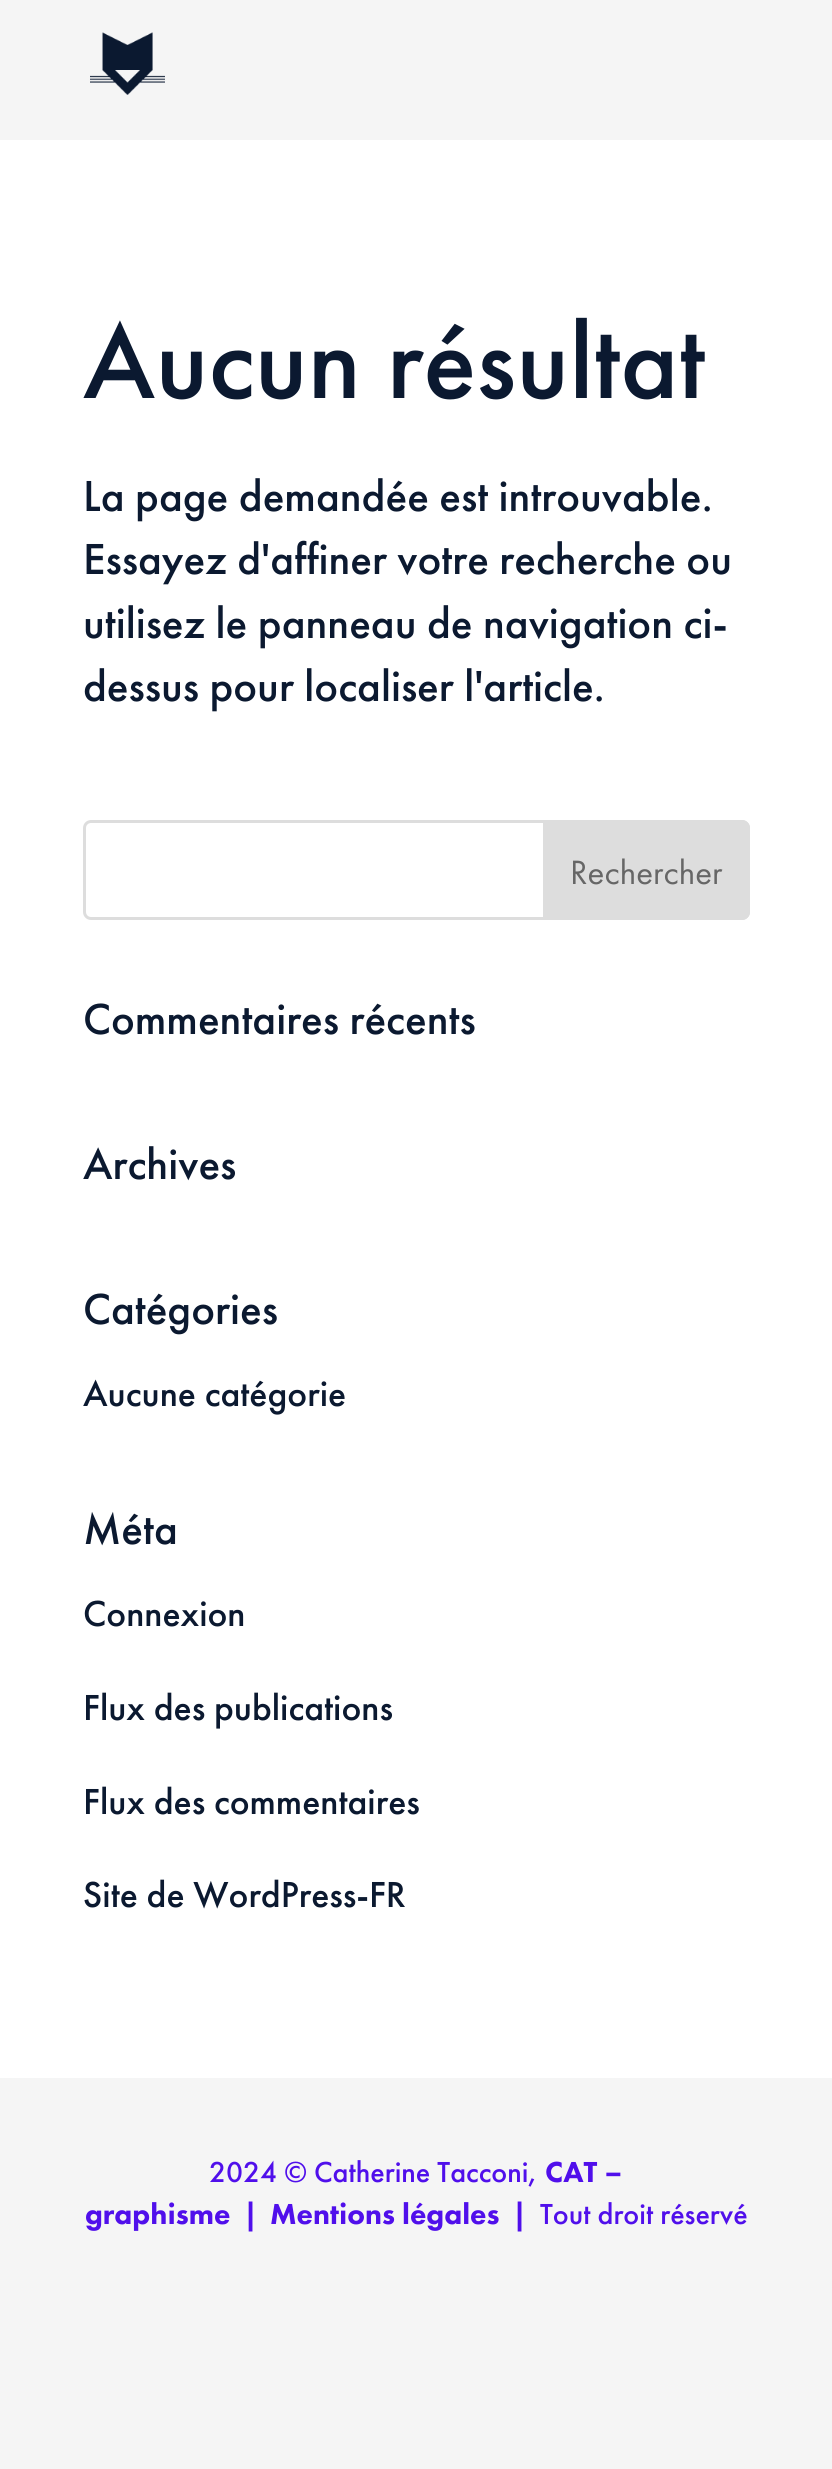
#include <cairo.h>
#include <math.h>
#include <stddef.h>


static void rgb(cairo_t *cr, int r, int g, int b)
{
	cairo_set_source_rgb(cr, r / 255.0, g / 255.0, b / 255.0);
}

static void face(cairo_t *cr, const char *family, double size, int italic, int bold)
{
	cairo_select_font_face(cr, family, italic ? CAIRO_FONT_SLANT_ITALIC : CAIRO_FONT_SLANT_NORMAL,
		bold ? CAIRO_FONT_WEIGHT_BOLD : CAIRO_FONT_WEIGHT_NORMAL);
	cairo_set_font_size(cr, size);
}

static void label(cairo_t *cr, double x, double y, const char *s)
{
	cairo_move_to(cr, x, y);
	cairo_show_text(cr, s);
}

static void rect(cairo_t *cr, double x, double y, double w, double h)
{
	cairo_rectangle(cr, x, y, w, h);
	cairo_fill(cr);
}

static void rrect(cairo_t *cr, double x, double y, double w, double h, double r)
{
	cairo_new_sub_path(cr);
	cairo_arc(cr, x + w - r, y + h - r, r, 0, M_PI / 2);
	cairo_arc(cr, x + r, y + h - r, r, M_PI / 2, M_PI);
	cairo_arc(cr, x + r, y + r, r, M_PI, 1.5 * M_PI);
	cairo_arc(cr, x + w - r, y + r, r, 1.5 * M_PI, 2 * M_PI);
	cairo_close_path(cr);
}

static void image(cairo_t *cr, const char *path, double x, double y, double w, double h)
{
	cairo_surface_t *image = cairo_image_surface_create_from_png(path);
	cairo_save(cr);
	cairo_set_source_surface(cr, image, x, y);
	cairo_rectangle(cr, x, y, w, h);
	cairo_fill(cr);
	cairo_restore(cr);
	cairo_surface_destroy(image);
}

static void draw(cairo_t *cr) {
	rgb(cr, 245, 245, 245);
	cairo_paint(cr);
	image(cr, "image0.png", 90, 32, 75, 63);
	rgb(cr, 255, 255, 255);
	rect(cr, 0, 140, 832, 1938);
	face(cr, "Futura PT Medium", 110, 0, 0);
	rgb(cr, 11, 25, 48);
	label(cr, 83, 398, "Aucun résultat");
	face(cr, "Futura PT Medium", 45, 0, 0);
	label(cr, 83, 511, "La page demandée est introuvable.");
	label(cr, 83, 574, "Essayez d'affiner votre recherche ou");
	label(cr, 83, 638, "utilisez le panneau de navigation ci-");
	label(cr, 83, 701, "dessus pour localiser l'article.");
	rrect(cr, 84.5, 821.5, 664, 97, 6.5);
	rgb(cr, 221, 221, 221);
	cairo_set_line_width(cr, 3);
	cairo_stroke(cr);
	cairo_new_path(cr);
	cairo_move_to(cr, 544.5, 821.5);
	cairo_line_to(cr, 742, 821.5);
	cairo_curve_to(cr, 745.5, 821.5, 748.5, 824.5, 748.5, 828);
	cairo_line_to(cr, 748.5, 912);
	cairo_curve_to(cr, 748.5, 915.5, 745.5, 918.5, 742, 918.5);
	cairo_line_to(cr, 544.5, 918.5);
	cairo_close_path(cr);
	cairo_fill_preserve(cr);
	cairo_stroke(cr);
	face(cr, "Futura PT", 35, 0, 0);
	rgb(cr, 102, 102, 102);
	label(cr, 570, 884, "Rechercher");
	face(cr, "Futura PT Medium", 45, 0, 0);
	rgb(cr, 11, 25, 48);
	label(cr, 83, 1034, "Commentaires récents");
	label(cr, 83, 1179, "Archives");
	label(cr, 83, 1324, "Catégories");
	face(cr, "Futura PT Medium", 37.5, 0, 0);
	label(cr, 83, 1406, "Aucune catégorie");
	face(cr, "Futura PT Medium", 45, 0, 0);
	label(cr, 83, 1544, "Méta");
	face(cr, "Futura PT Medium", 37.5, 0, 0);
	label(cr, 83, 1626, "Connexion");
	label(cr, 83, 1720, "Flux des publications");
	label(cr, 83, 1814, "Flux des commentaires");
	label(cr, 83, 1907, "Site de WordPress-FR");
	face(cr, "Futura PT Medium", 30, 0, 0);
	rgb(cr, 80, 15, 235);
	label(cr, 209, 2182, "2024 © Catherine Tacconi,");
	face(cr, "Futura PT Black", 30, 0, 0);
	label(cr, 545, 2182, "CAT –");
	label(cr, 85, 2224, "graphisme");
	label(cr, 243, 2224, "|");
	label(cr, 270, 2224, "Mentions légales");
	label(cr, 512, 2224, "|");
	face(cr, "Futura PT Medium", 30, 0, 0);
	label(cr, 540, 2224, "Tout droit réservé");
}

int main(void) {
	cairo_surface_t *surface = cairo_image_surface_create(CAIRO_FORMAT_RGB24, 832, 2469);
	cairo_t *cr = cairo_create(surface);
	cairo_font_options_t *options = cairo_font_options_create();
	cairo_font_options_set_hint_metrics(options, CAIRO_HINT_METRICS_OFF);
	cairo_font_options_set_hint_style(options, CAIRO_HINT_STYLE_NONE);
	cairo_set_font_options(cr, options);
	cairo_set_miter_limit(cr, 4);
	draw(cr);
	cairo_surface_write_to_png(surface, "render.png");
	cairo_font_options_destroy(options);
	cairo_destroy(cr);
	cairo_surface_destroy(surface);
	return 0;
}
